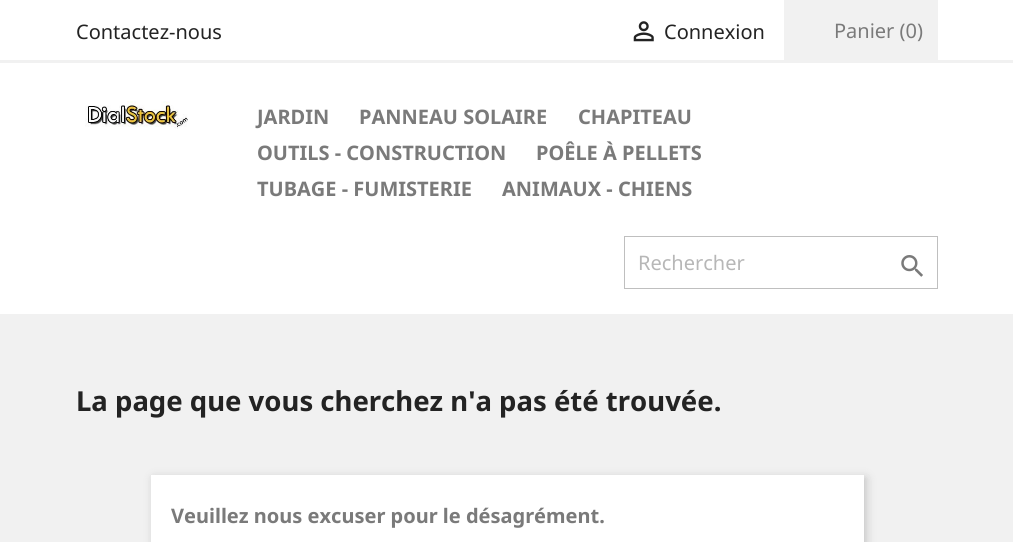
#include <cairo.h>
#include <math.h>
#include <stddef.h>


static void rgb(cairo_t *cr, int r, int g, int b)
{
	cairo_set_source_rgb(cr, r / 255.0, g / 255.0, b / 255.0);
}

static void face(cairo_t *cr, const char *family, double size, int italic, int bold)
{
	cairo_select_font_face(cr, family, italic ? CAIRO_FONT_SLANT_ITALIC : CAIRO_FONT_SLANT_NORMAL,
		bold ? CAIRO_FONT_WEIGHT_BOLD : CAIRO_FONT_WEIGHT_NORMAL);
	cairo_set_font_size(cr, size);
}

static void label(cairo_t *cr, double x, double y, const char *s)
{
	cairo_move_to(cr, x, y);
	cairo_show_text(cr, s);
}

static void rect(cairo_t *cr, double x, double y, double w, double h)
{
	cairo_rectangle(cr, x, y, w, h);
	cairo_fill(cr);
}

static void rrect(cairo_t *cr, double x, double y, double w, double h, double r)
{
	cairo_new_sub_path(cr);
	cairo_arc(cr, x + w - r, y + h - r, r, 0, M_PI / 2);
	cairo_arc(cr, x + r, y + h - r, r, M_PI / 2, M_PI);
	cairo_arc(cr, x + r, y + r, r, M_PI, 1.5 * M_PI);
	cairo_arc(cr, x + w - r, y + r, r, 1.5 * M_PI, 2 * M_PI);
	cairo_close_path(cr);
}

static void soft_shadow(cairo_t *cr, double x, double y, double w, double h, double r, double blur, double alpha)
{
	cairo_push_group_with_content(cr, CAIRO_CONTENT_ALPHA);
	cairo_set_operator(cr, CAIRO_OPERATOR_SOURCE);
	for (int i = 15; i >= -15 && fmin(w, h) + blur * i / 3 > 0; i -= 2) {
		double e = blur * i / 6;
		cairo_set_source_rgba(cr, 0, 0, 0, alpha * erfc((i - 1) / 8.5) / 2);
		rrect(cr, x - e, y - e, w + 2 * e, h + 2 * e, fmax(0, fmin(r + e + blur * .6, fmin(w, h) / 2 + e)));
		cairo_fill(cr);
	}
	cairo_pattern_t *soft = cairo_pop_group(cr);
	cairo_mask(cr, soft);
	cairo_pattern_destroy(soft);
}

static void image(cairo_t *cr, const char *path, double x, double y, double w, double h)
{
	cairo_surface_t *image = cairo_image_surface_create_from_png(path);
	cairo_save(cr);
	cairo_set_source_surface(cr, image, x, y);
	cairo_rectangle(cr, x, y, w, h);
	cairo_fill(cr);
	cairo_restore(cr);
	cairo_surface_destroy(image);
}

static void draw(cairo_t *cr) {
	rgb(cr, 255, 255, 255);
	cairo_paint(cr);
	rgb(cr, 241, 241, 241);
	rect(cr, 0, 60, 1013, 3);
	face(cr, "Noto Sans", 20, 0, 0);
	rgb(cr, 35, 35, 35);
	label(cr, 76, 39, "Contactez-nous");
	image(cr, "image0.png", 633, 21, 21, 21);
	label(cr, 664, 39, "Connexion");
	rgb(cr, 241, 241, 241);
	rect(cr, 784, 0, 154, 60);
	rgb(cr, 122, 122, 122);
	label(cr, 834, 38, "Panier (0)");
	image(cr, "image1.png", 85, 101, 103, 28);
	face(cr, "Noto Sans", 20, 0, 1);
	label(cr, 257, 124, "JARDIN");
	label(cr, 359, 124, "PANNEAU SOLAIRE");
	label(cr, 578, 124, "CHAPITEAU");
	label(cr, 257, 160, "OUTILS - CONSTRUCTION");
	label(cr, 536, 160, "POÊLE À PELLETS");
	label(cr, 257, 196, "TUBAGE - FUMISTERIE");
	label(cr, 502, 196, "ANIMAUX - CHIENS");
	cairo_rectangle(cr, 624.5, 236.5, 313, 52);
	rgb(cr, 191, 191, 191);
	cairo_set_line_width(cr, 1);
	cairo_stroke(cr);
	face(cr, "Noto Sans", 20, 0, 0);
	rgb(cr, 183, 183, 183);
	label(cr, 638, 270, "Rechercher");
	image(cr, "image2.png", 901, 255, 22, 22);
	rgb(cr, 241, 241, 241);
	rect(cr, 0, 314, 1013, 228);
	face(cr, "Noto Sans", 27.5, 0, 1);
	rgb(cr, 35, 35, 35);
	label(cr, 76, 411, "La page que vous cherchez n'a pas été trouvée.");
	rgb(cr, 0, 0, 0);
	soft_shadow(cr, 154, 478, 712, 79, 0, 5, 0.2);
	rgb(cr, 255, 255, 255);
	rect(cr, 151, 475, 713, 67);
	face(cr, "Noto Sans", 20, 0, 1);
	rgb(cr, 122, 122, 122);
	label(cr, 171, 523, "Veuillez nous excuser pour le désagrément.");
}

int main(void) {
	cairo_surface_t *surface = cairo_image_surface_create(CAIRO_FORMAT_RGB24, 1013, 542);
	cairo_t *cr = cairo_create(surface);
	cairo_font_options_t *options = cairo_font_options_create();
	cairo_font_options_set_hint_metrics(options, CAIRO_HINT_METRICS_OFF);
	cairo_font_options_set_hint_style(options, CAIRO_HINT_STYLE_NONE);
	cairo_set_font_options(cr, options);
	cairo_set_miter_limit(cr, 4);
	draw(cr);
	cairo_surface_write_to_png(surface, "render.png");
	cairo_font_options_destroy(options);
	cairo_destroy(cr);
	cairo_surface_destroy(surface);
	return 0;
}
